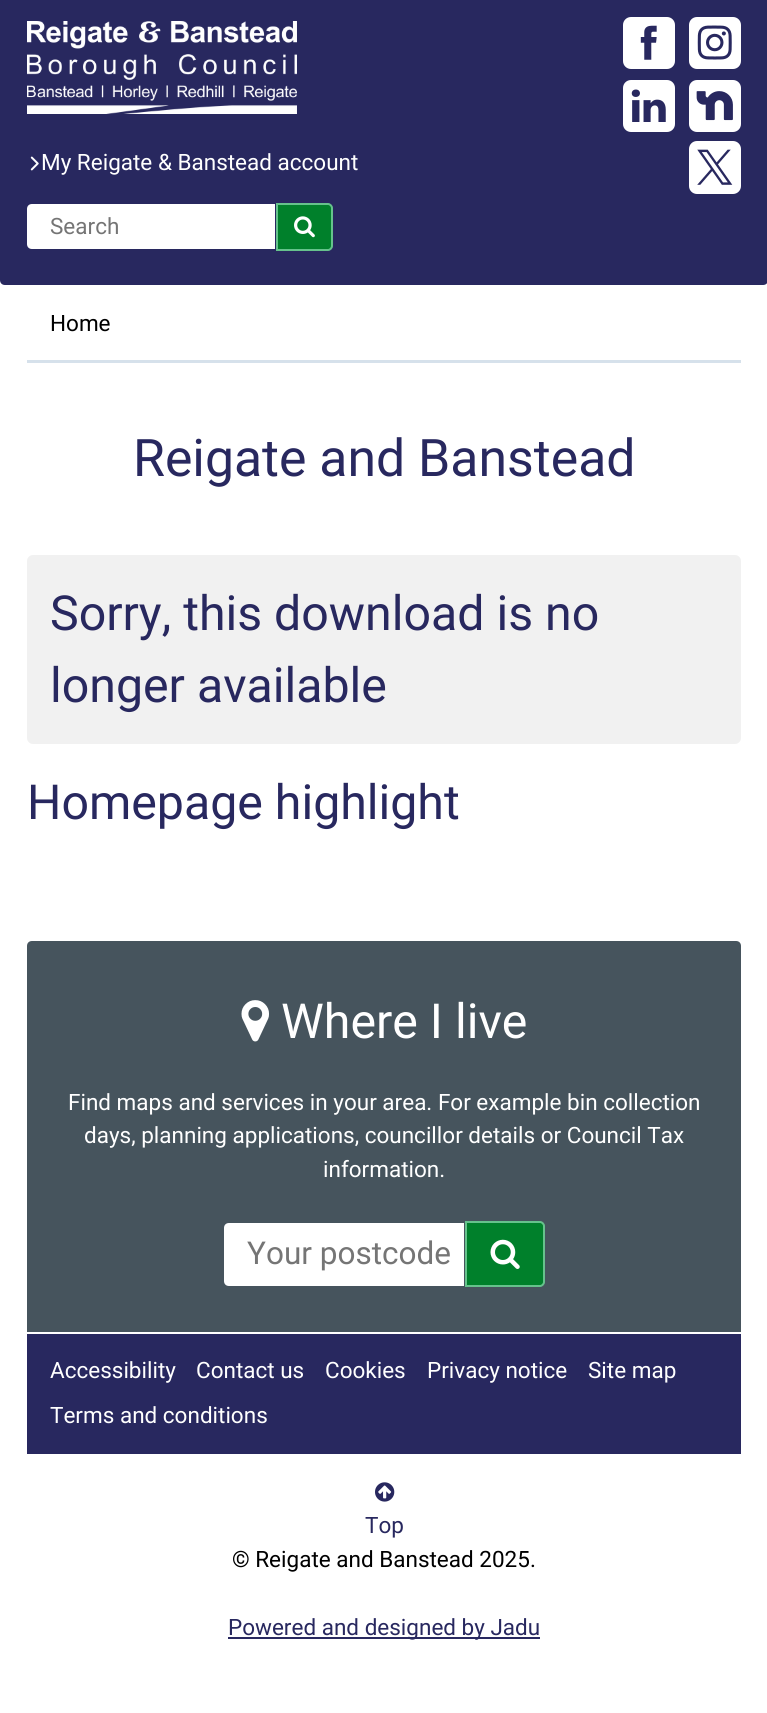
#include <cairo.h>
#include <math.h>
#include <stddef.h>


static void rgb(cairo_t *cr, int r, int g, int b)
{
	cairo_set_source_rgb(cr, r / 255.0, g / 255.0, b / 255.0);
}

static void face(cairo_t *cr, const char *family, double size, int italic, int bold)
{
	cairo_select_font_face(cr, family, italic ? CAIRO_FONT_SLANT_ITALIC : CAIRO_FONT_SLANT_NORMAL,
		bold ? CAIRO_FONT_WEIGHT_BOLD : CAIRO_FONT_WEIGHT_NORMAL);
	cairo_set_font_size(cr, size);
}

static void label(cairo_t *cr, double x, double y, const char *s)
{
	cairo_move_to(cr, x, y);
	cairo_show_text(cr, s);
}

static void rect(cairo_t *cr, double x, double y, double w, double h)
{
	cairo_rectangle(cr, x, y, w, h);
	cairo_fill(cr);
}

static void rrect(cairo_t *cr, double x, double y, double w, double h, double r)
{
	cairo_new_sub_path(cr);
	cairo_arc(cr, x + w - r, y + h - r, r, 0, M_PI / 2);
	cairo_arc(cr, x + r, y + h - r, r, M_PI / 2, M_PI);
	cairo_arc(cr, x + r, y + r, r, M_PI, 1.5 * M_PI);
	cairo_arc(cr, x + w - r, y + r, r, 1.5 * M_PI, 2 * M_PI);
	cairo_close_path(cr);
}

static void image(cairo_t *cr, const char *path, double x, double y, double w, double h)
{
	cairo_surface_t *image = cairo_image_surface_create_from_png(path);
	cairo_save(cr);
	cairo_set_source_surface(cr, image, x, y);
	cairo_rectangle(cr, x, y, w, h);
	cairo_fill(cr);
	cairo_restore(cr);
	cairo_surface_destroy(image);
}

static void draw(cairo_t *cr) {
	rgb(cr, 255, 255, 255);
	cairo_paint(cr);
	rgb(cr, 40, 40, 95);
	cairo_new_path(cr);
	cairo_move_to(cr, 0, -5);
	cairo_line_to(cr, 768, -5);
	cairo_line_to(cr, 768, 280);
	cairo_curve_to(cr, 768, 283, 766, 285, 763, 285);
	cairo_line_to(cr, 5, 285);
	cairo_curve_to(cr, 2, 285, 0, 283, 0, 280);
	cairo_close_path(cr);
	cairo_fill(cr);
	image(cr, "image0.png", 27, 21, 270, 93);
	rgb(cr, 255, 255, 255);
	rrect(cr, 623, 17, 52, 52, 8);
	cairo_fill(cr);
	image(cr, "image1.png", 640, 25, 17, 35);
	rrect(cr, 689, 17, 52, 52, 8);
	cairo_fill(cr);
	image(cr, "image2.png", 697, 25, 35, 35);
	rrect(cr, 623, 80, 52, 52, 8);
	cairo_fill(cr);
	image(cr, "image3.png", 631, 89, 35, 33);
	rrect(cr, 689, 80, 52, 52, 8);
	cairo_fill(cr);
	image(cr, "image4.png", 696, 91, 37, 30);
	rrect(cr, 689, 141, 52, 53, 8);
	cairo_fill(cr);
	image(cr, "image5.png", 697, 149, 36, 36);
	image(cr, "image6.png", 30, 156, 9, 15);
	face(cr, "Roboto", 22.5, 0, 0);
	label(cr, 41, 170, "My Reigate & Banstead account");
	cairo_new_path(cr);
	cairo_move_to(cr, 32, 204);
	cairo_line_to(cr, 275, 204);
	cairo_line_to(cr, 275, 249);
	cairo_line_to(cr, 32, 249);
	cairo_curve_to(cr, 29, 249, 27, 247, 27, 244);
	cairo_line_to(cr, 27, 209);
	cairo_curve_to(cr, 27, 206, 29, 204, 32, 204);
	cairo_close_path(cr);
	cairo_fill(cr);
	rgb(cr, 117, 117, 117);
	label(cr, 50, 234, "Search");
	rgb(cr, 0, 128, 43);
	cairo_new_path(cr);
	cairo_move_to(cr, 277, 204);
	cairo_line_to(cr, 328, 204);
	cairo_curve_to(cr, 330, 204, 332, 206, 332, 208);
	cairo_line_to(cr, 332, 246);
	cairo_curve_to(cr, 332, 248, 330, 250, 328, 250);
	cairo_line_to(cr, 277, 250);
	cairo_close_path(cr);
	cairo_fill_preserve(cr);
	rgb(cr, 102, 194, 140);
	cairo_stroke(cr);
	image(cr, "image7.png", 294, 216, 21, 22);
	rgb(cr, 214, 225, 235);
	rect(cr, 27, 360, 714, 3);
	rgb(cr, 0, 0, 0);
	label(cr, 50, 331, "Home");
	face(cr, "Roboto", 51.75, 0, 0);
	rgb(cr, 40, 40, 95);
	label(cr, 133, 476, "Reigate and Banstead");
	rgb(cr, 241, 241, 241);
	rrect(cr, 27, 555, 714, 189, 6);
	cairo_fill(cr);
	face(cr, "Roboto", 48.25, 0, 0);
	rgb(cr, 40, 40, 95);
	label(cr, 50, 630, "Sorry, this download is no");
	label(cr, 50, 702, "longer available");
	label(cr, 27, 819, "Homepage highlight");
	rgb(cr, 70, 84, 93);
	cairo_new_path(cr);
	cairo_move_to(cr, 32, 941);
	cairo_line_to(cr, 736, 941);
	cairo_curve_to(cr, 739, 941, 741, 943, 741, 946);
	cairo_line_to(cr, 741, 1332);
	cairo_line_to(cr, 27, 1332);
	cairo_line_to(cr, 27, 946);
	cairo_curve_to(cr, 27, 943, 29, 941, 32, 941);
	cairo_close_path(cr);
	cairo_fill(cr);
	image(cr, "image8.png", 241, 1000, 28, 42);
	rgb(cr, 255, 255, 255);
	label(cr, 281, 1038, "Where I live");
	face(cr, "Roboto", 22.5, 0, 0);
	label(cr, 68, 1110, "Find maps and services in your area. For example bin collection");
	label(cr, 84, 1143, "days, planning applications, councillor details or Council Tax");
	label(cr, 323, 1177, "information.");
	cairo_new_path(cr);
	cairo_move_to(cr, 229, 1223);
	cairo_line_to(cr, 464, 1223);
	cairo_line_to(cr, 464, 1286);
	cairo_line_to(cr, 229, 1286);
	cairo_curve_to(cr, 226, 1286, 224, 1284, 224, 1281);
	cairo_line_to(cr, 224, 1228);
	cairo_curve_to(cr, 224, 1225, 226, 1223, 229, 1223);
	cairo_close_path(cr);
	cairo_fill(cr);
	face(cr, "Roboto", 31.5, 0, 0);
	rgb(cr, 117, 117, 117);
	label(cr, 247, 1264, "Your postcode");
	rgb(cr, 0, 128, 43);
	cairo_new_path(cr);
	cairo_move_to(cr, 466, 1222);
	cairo_line_to(cr, 540, 1222);
	cairo_curve_to(cr, 542, 1222, 544, 1224, 544, 1226);
	cairo_line_to(cr, 544, 1282);
	cairo_curve_to(cr, 544, 1284, 542, 1286, 540, 1286);
	cairo_line_to(cr, 466, 1286);
	cairo_close_path(cr);
	cairo_fill_preserve(cr);
	rgb(cr, 102, 194, 140);
	cairo_stroke(cr);
	image(cr, "image9.png", 490, 1239, 30, 30);
	rgb(cr, 40, 40, 95);
	rect(cr, 27, 1334, 714, 120);
	face(cr, "Roboto", 22.5, 0, 0);
	rgb(cr, 255, 255, 255);
	label(cr, 50, 1378, "Accessibility");
	label(cr, 196, 1378, "Contact us");
	label(cr, 325, 1378, "Cookies");
	label(cr, 427, 1378, "Privacy notice");
	label(cr, 588, 1378, "Site map");
	label(cr, 50, 1423, "Terms and conditions");
	image(cr, "image10.png", 375, 1482, 20, 20);
	rgb(cr, 40, 40, 95);
	label(cr, 365, 1533, "Top");
	rgb(cr, 0, 0, 0);
	label(cr, 232, 1567, "© Reigate and Banstead 2025.");
	rgb(cr, 40, 40, 95);
	rect(cr, 228, 1637, 312, 2);
	label(cr, 228, 1635, "Powered and designed by Jadu");
}

int main(void) {
	cairo_surface_t *surface = cairo_image_surface_create(CAIRO_FORMAT_RGB24, 767, 1713);
	cairo_t *cr = cairo_create(surface);
	cairo_font_options_t *options = cairo_font_options_create();
	cairo_font_options_set_hint_metrics(options, CAIRO_HINT_METRICS_OFF);
	cairo_font_options_set_hint_style(options, CAIRO_HINT_STYLE_NONE);
	cairo_set_font_options(cr, options);
	cairo_set_miter_limit(cr, 4);
	draw(cr);
	cairo_surface_write_to_png(surface, "render.png");
	cairo_font_options_destroy(options);
	cairo_destroy(cr);
	cairo_surface_destroy(surface);
	return 0;
}
